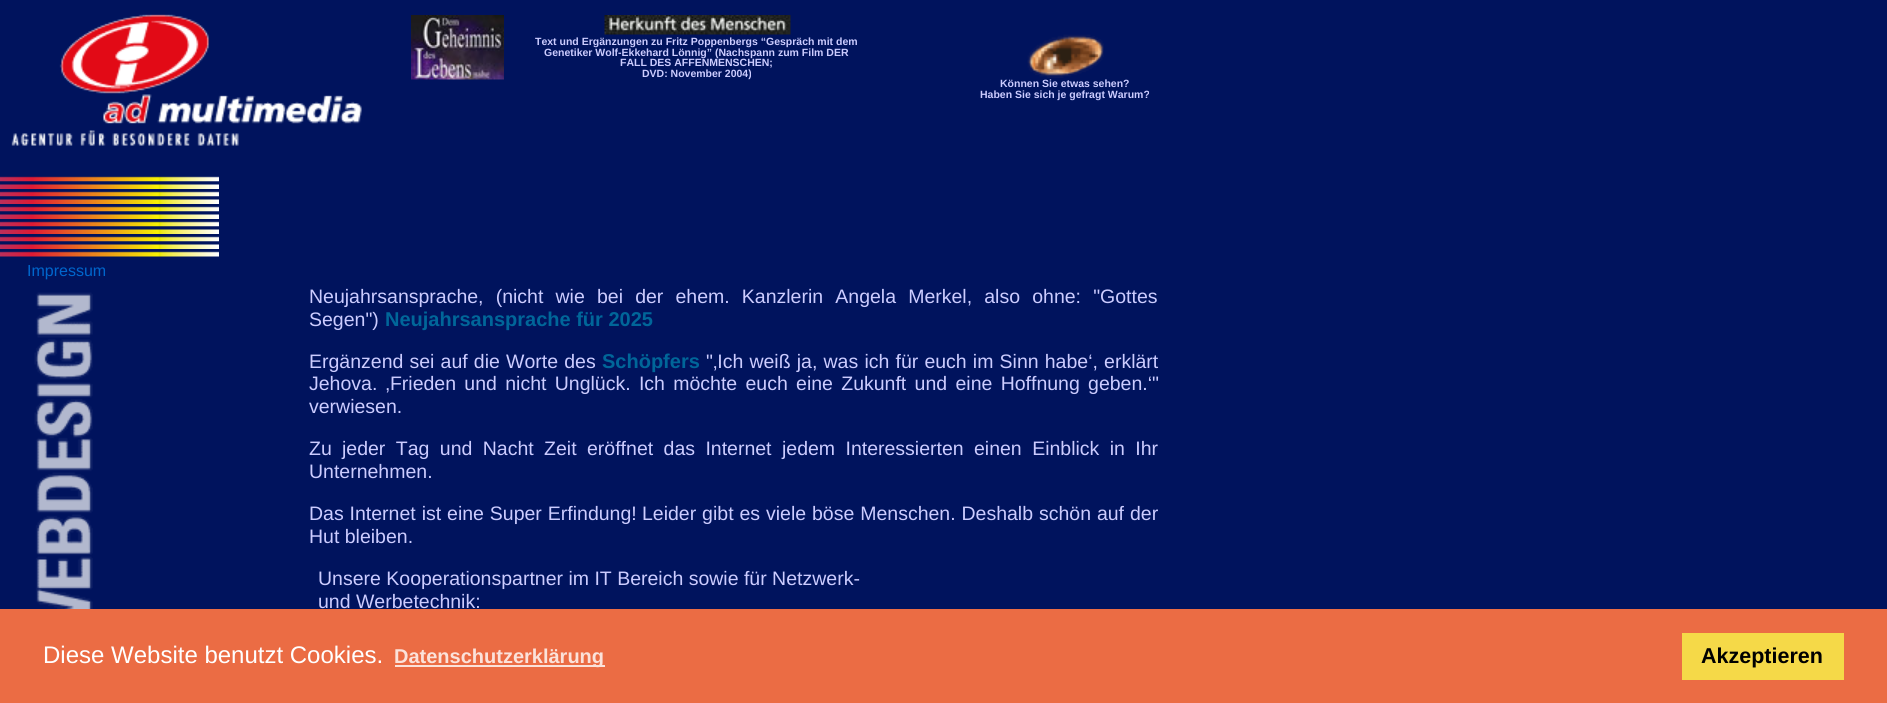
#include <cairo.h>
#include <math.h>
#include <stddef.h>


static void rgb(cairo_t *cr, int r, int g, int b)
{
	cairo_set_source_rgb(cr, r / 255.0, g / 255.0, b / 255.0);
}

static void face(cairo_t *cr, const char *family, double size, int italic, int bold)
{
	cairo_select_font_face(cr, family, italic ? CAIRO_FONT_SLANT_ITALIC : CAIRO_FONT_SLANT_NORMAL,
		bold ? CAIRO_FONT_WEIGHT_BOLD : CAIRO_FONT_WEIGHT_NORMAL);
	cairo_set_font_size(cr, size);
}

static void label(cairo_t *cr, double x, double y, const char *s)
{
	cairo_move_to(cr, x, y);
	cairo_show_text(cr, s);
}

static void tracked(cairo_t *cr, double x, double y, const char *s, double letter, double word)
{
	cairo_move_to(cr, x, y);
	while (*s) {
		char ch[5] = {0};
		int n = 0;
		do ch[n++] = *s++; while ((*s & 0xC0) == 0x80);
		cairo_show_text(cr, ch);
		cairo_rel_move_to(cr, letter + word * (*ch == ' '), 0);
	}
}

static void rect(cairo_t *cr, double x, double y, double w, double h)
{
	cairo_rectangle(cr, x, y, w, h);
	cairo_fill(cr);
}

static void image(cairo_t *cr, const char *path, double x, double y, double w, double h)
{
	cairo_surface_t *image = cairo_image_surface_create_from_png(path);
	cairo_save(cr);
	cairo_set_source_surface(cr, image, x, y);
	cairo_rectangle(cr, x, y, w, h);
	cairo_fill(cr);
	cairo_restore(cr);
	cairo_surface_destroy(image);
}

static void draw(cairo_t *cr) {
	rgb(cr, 0, 19, 93);
	cairo_paint(cr);
	image(cr, "image0.png", 11, 14, 351, 132);
	image(cr, "image1.png", 411, 15, 93, 65);
	image(cr, "image2.png", 604, 15, 187, 20);
	face(cr, "Liberation Sans", 10.5, 0, 1);
	rgb(cr, 204, 204, 255);
	label(cr, 535, 45, "Text und Ergänzungen zu Fritz Poppenbergs “Gespräch mit dem");
	label(cr, 544, 56, "Genetiker Wolf-Ekkehard Lönnig” (Nachspann zum Film DER");
	label(cr, 620, 66, "FALL DES AFFENMENSCHEN;");
	label(cr, 642, 77, "DVD: November 2004)");
	image(cr, "image3.png", 1027, 34, 77, 44);
	label(cr, 1000, 87, "Können Sie etwas sehen?");
	label(cr, 980, 98, "Haben Sie sich je gefragt Warum?");
	image(cr, "image4.png", 0, 176, 219, 6);
	image(cr, "image5.png", 0, 181, 219, 8);
	image(cr, "image4.png", 0, 191, 219, 6);
	image(cr, "image5.png", 0, 196, 219, 8);
	image(cr, "image4.png", 0, 206, 219, 6);
	image(cr, "image5.png", 0, 211, 219, 8);
	image(cr, "image4.png", 0, 221, 219, 6);
	image(cr, "image5.png", 0, 226, 219, 8);
	image(cr, "image4.png", 0, 236, 219, 6);
	image(cr, "image5.png", 0, 241, 219, 8);
	image(cr, "image4.png", 0, 251, 219, 6);
	face(cr, "Liberation Sans", 16, 0, 0);
	rgb(cr, 0, 102, 204);
	label(cr, 27, 276, "Impressum");
	image(cr, "image6.png", 34, 292, 59, 317);
	face(cr, "Liberation Sans", 19.5, 0, 0);
	rgb(cr, 204, 204, 255);
	tracked(cr, 309, 303, "Neujahrsansprache, (nicht wie bei der ehem. Kanzlerin Angela Merkel, also ohne: \"Gottes", 0, 6.75);
	label(cr, 309, 326, "Segen\")");
	face(cr, "Liberation Sans", 20, 0, 1);
	rgb(cr, 0, 102, 153);
	label(cr, 385, 326, "Neujahrsansprache für 2025");
	face(cr, "Liberation Sans", 19.5, 0, 0);
	rgb(cr, 204, 204, 255);
	tracked(cr, 309, 368, "Ergänzend sei auf die Worte des", 0, 0.75);
	face(cr, "Liberation Sans", 20, 0, 1);
	rgb(cr, 0, 102, 153);
	label(cr, 602, 368, "Schöpfers");
	face(cr, "Liberation Sans", 19.5, 0, 0);
	rgb(cr, 204, 204, 255);
	tracked(cr, 706, 368, "\"‚Ich weiß ja, was ich für euch im Sinn habe‘, erklärt", 0, 0.75);
	tracked(cr, 309, 390, "Jehova. ‚Frieden und nicht Unglück. Ich möchte euch eine Zukunft und eine Hoffnung geben.‘\"", 0, 2.9);
	label(cr, 309, 413, "verwiesen.");
	label(cr, 309, 455, "Zu");
	tracked(cr, 342, 455, "jeder Tag und Nacht Zeit eröffnet das Internet jedem Interessierten", 0, 5);
	tracked(cr, 974, 455, "einen Einblick in Ihr", 0, 5);
	label(cr, 309, 478, "Unternehmen.");
	tracked(cr, 309, 520, "Das Internet ist eine Super Erfindung!", 0, 0.5);
	tracked(cr, 642, 520, "Leider gibt es viele böse Menschen. Deshalb schön auf", 0, 0.5);
	label(cr, 1130, 520, "der");
	label(cr, 309, 543, "Hut bleiben.");
	label(cr, 318, 585, "Unsere Kooperationspartner im IT Bereich sowie für Netzwerk-");
	label(cr, 318, 608, "und Werbetechnik:");
	rgb(cr, 235, 108, 68);
	rect(cr, 0, 609, 1887, 94);
	face(cr, "Liberation Sans", 24, 0, 0);
	rgb(cr, 255, 255, 255);
	label(cr, 43, 663, "Diese Website benutzt Cookies.");
	rgb(cr, 251, 226, 218);
	rect(cr, 395, 665, 210, 2);
	face(cr, "Liberation Sans", 20, 0, 1);
	label(cr, 394, 663, "Datenschutzerklärung");
	rgb(cr, 245, 217, 72);
	rect(cr, 1682, 633, 162, 47);
	face(cr, "Liberation Sans", 21.5, 0, 1);
	rgb(cr, 0, 0, 0);
	label(cr, 1701, 663, "Akzeptieren");
}

int main(void) {
	cairo_surface_t *surface = cairo_image_surface_create(CAIRO_FORMAT_RGB24, 1887, 703);
	cairo_t *cr = cairo_create(surface);
	cairo_font_options_t *options = cairo_font_options_create();
	cairo_font_options_set_hint_metrics(options, CAIRO_HINT_METRICS_OFF);
	cairo_font_options_set_hint_style(options, CAIRO_HINT_STYLE_NONE);
	cairo_set_font_options(cr, options);
	cairo_set_miter_limit(cr, 4);
	draw(cr);
	cairo_surface_write_to_png(surface, "render.png");
	cairo_font_options_destroy(options);
	cairo_destroy(cr);
	cairo_surface_destroy(surface);
	return 0;
}
